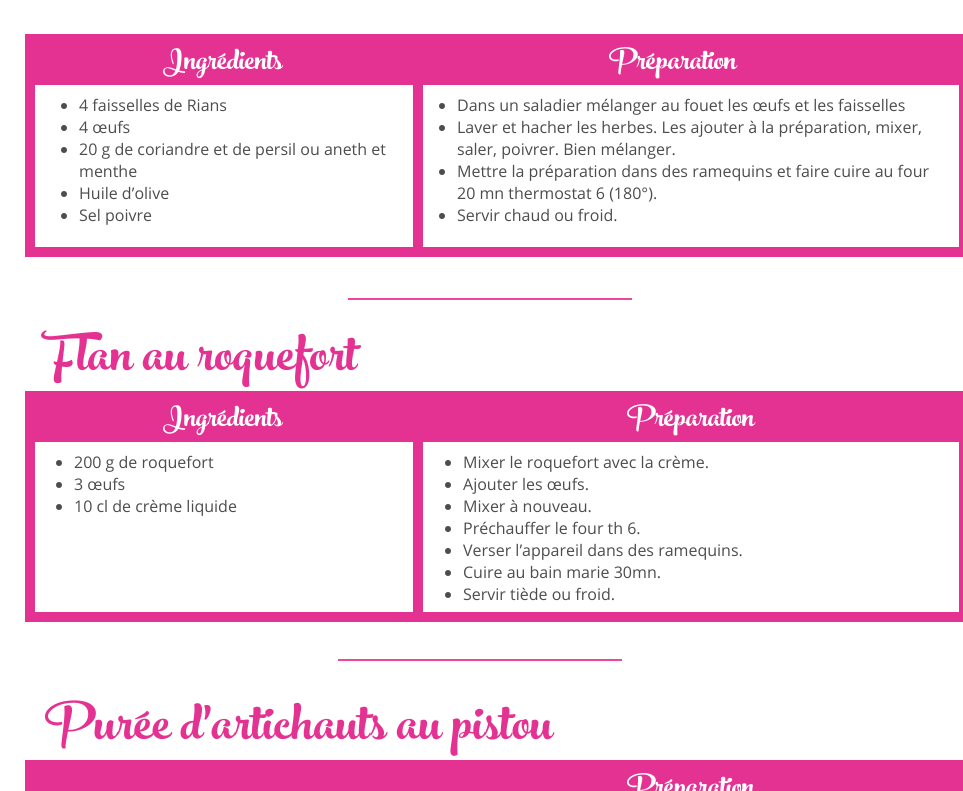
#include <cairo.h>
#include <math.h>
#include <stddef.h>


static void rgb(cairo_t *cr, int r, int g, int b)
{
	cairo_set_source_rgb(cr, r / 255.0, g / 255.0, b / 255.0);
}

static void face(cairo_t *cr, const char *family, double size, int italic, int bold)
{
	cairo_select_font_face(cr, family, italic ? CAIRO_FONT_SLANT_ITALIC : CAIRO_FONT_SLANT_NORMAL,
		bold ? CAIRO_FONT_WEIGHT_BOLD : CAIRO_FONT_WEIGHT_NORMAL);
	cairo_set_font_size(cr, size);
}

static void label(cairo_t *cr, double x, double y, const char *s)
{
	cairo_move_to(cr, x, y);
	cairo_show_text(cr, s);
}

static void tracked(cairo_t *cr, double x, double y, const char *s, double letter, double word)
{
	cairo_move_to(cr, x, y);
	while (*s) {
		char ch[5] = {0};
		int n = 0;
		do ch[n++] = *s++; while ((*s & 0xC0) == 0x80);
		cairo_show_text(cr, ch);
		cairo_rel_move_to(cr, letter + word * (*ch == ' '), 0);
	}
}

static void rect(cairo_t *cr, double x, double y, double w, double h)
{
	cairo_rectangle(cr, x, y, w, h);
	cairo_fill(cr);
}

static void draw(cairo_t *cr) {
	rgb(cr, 255, 255, 255);
	cairo_paint(cr);
	rgb(cr, 228, 50, 146);
	rect(cr, 25, 34, 388, 51);
	cairo_rectangle(cr, 30, 79, 388, 173);
	cairo_set_line_width(cr, 10);
	cairo_stroke(cr);
	cairo_rectangle(cr, 418, 79, 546, 173);
	cairo_stroke(cr);
	rect(cr, 413, 34, 550, 51);
	face(cr, "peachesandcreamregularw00", 43, 0, 0);
	rgb(cr, 255, 255, 255);
	label(cr, 163, 69, "Ingrédients");
	label(cr, 609, 69, "Préparation");
	rgb(cr, 77, 77, 77);
	cairo_new_path(cr);
	cairo_arc(cr, 64, 106, 3, 0, 2 * M_PI);
	cairo_fill(cr);
	face(cr, "Open Sans", 16, 0, 0);
	label(cr, 79, 111, "4 faisselles de Rians");
	cairo_new_path(cr);
	cairo_arc(cr, 64, 128, 3, 0, 2 * M_PI);
	cairo_fill(cr);
	label(cr, 79, 133, "4 œufs");
	cairo_new_path(cr);
	cairo_arc(cr, 64, 150, 3, 0, 2 * M_PI);
	cairo_fill(cr);
	label(cr, 79, 155, "20 g de coriandre et de persil ou aneth et");
	label(cr, 79, 177, "menthe");
	cairo_new_path(cr);
	cairo_arc(cr, 64, 194, 3, 0, 2 * M_PI);
	cairo_fill(cr);
	label(cr, 79, 199, "Huile d’olive");
	cairo_new_path(cr);
	cairo_arc(cr, 64, 216, 3, 0, 2 * M_PI);
	cairo_fill(cr);
	label(cr, 79, 221, "Sel poivre");
	cairo_new_path(cr);
	cairo_arc(cr, 442, 106, 3, 0, 2 * M_PI);
	cairo_fill(cr);
	label(cr, 457, 111, "Dans un saladier mélanger au fouet les œufs et les faisselles");
	cairo_new_path(cr);
	cairo_arc(cr, 442, 128, 3, 0, 2 * M_PI);
	cairo_fill(cr);
	label(cr, 457, 133, "Laver et hacher les herbes. Les ajouter à la préparation, mixer,");
	label(cr, 457, 155, "saler, poivrer. Bien mélanger.");
	cairo_new_path(cr);
	cairo_arc(cr, 442, 172, 3, 0, 2 * M_PI);
	cairo_fill(cr);
	label(cr, 457, 177, "Mettre la préparation dans des ramequins et faire cuire au four");
	label(cr, 457, 199, "20 mn thermostat 6 (180°).");
	cairo_new_path(cr);
	cairo_arc(cr, 442, 216, 3, 0, 2 * M_PI);
	cairo_fill(cr);
	label(cr, 457, 221, "Servir chaud ou froid.");
	rgb(cr, 237, 69, 160);
	rect(cr, 348, 298, 284, 2);
	face(cr, "peachesandcreamregularw00", 76, 0, 0);
	rgb(cr, 228, 50, 146);
	tracked(cr, 45, 370, "Flan au roquefort", 0.75, 0);
	rect(cr, 25, 391, 388, 51);
	cairo_rectangle(cr, 30, 436, 388, 181);
	cairo_stroke(cr);
	cairo_rectangle(cr, 418, 436, 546, 181);
	cairo_stroke(cr);
	rect(cr, 413, 391, 550, 51);
	face(cr, "peachesandcreamregularw00", 43, 0, 0);
	rgb(cr, 255, 255, 255);
	label(cr, 163, 426, "Ingrédients");
	label(cr, 627, 426, "Préparation");
	rgb(cr, 77, 77, 77);
	cairo_new_path(cr);
	cairo_arc(cr, 59, 463, 3, 0, 2 * M_PI);
	cairo_fill(cr);
	face(cr, "Open Sans", 16, 0, 0);
	label(cr, 74, 468, "200 g de roquefort");
	cairo_new_path(cr);
	cairo_arc(cr, 59, 485, 3, 0, 2 * M_PI);
	cairo_fill(cr);
	label(cr, 74, 490, "3 œufs");
	cairo_new_path(cr);
	cairo_arc(cr, 59, 507, 3, 0, 2 * M_PI);
	cairo_fill(cr);
	label(cr, 74, 512, "10 cl de crème liquide");
	cairo_new_path(cr);
	cairo_arc(cr, 448, 463, 3, 0, 2 * M_PI);
	cairo_fill(cr);
	label(cr, 463, 468, "Mixer le roquefort avec la crème.");
	cairo_new_path(cr);
	cairo_arc(cr, 448, 485, 3, 0, 2 * M_PI);
	cairo_fill(cr);
	label(cr, 463, 490, "Ajouter les œufs.");
	cairo_new_path(cr);
	cairo_arc(cr, 448, 507, 3, 0, 2 * M_PI);
	cairo_fill(cr);
	label(cr, 463, 512, "Mixer à nouveau.");
	cairo_new_path(cr);
	cairo_arc(cr, 448, 529, 3, 0, 2 * M_PI);
	cairo_fill(cr);
	label(cr, 463, 534, "Préchauffer le four th 6.");
	cairo_new_path(cr);
	cairo_arc(cr, 448, 551, 3, 0, 2 * M_PI);
	cairo_fill(cr);
	label(cr, 463, 556, "Verser l’appareil dans des ramequins.");
	cairo_new_path(cr);
	cairo_arc(cr, 448, 573, 3, 0, 2 * M_PI);
	cairo_fill(cr);
	label(cr, 463, 578, "Cuire au bain marie 30mn.");
	cairo_new_path(cr);
	cairo_arc(cr, 448, 595, 3, 0, 2 * M_PI);
	cairo_fill(cr);
	label(cr, 463, 600, "Servir tiède ou froid.");
	rgb(cr, 237, 69, 160);
	rect(cr, 338, 659, 284, 2);
	face(cr, "peachesandcreamregularw00", 76, 0, 0);
	rgb(cr, 228, 50, 146);
	tracked(cr, 45, 739, "Purée d'artichauts au pistou", 0.75, 0);
	rect(cr, 25, 760, 938, 31);
	face(cr, "peachesandcreamregularw00", 43, 0, 0);
	rgb(cr, 255, 255, 255);
	label(cr, 627, 795, "Préparation");
}

int main(void) {
	cairo_surface_t *surface = cairo_image_surface_create(CAIRO_FORMAT_RGB24, 963, 791);
	cairo_t *cr = cairo_create(surface);
	cairo_font_options_t *options = cairo_font_options_create();
	cairo_font_options_set_hint_metrics(options, CAIRO_HINT_METRICS_OFF);
	cairo_font_options_set_hint_style(options, CAIRO_HINT_STYLE_NONE);
	cairo_set_font_options(cr, options);
	cairo_set_miter_limit(cr, 4);
	draw(cr);
	cairo_surface_write_to_png(surface, "render.png");
	cairo_font_options_destroy(options);
	cairo_destroy(cr);
	cairo_surface_destroy(surface);
	return 0;
}
